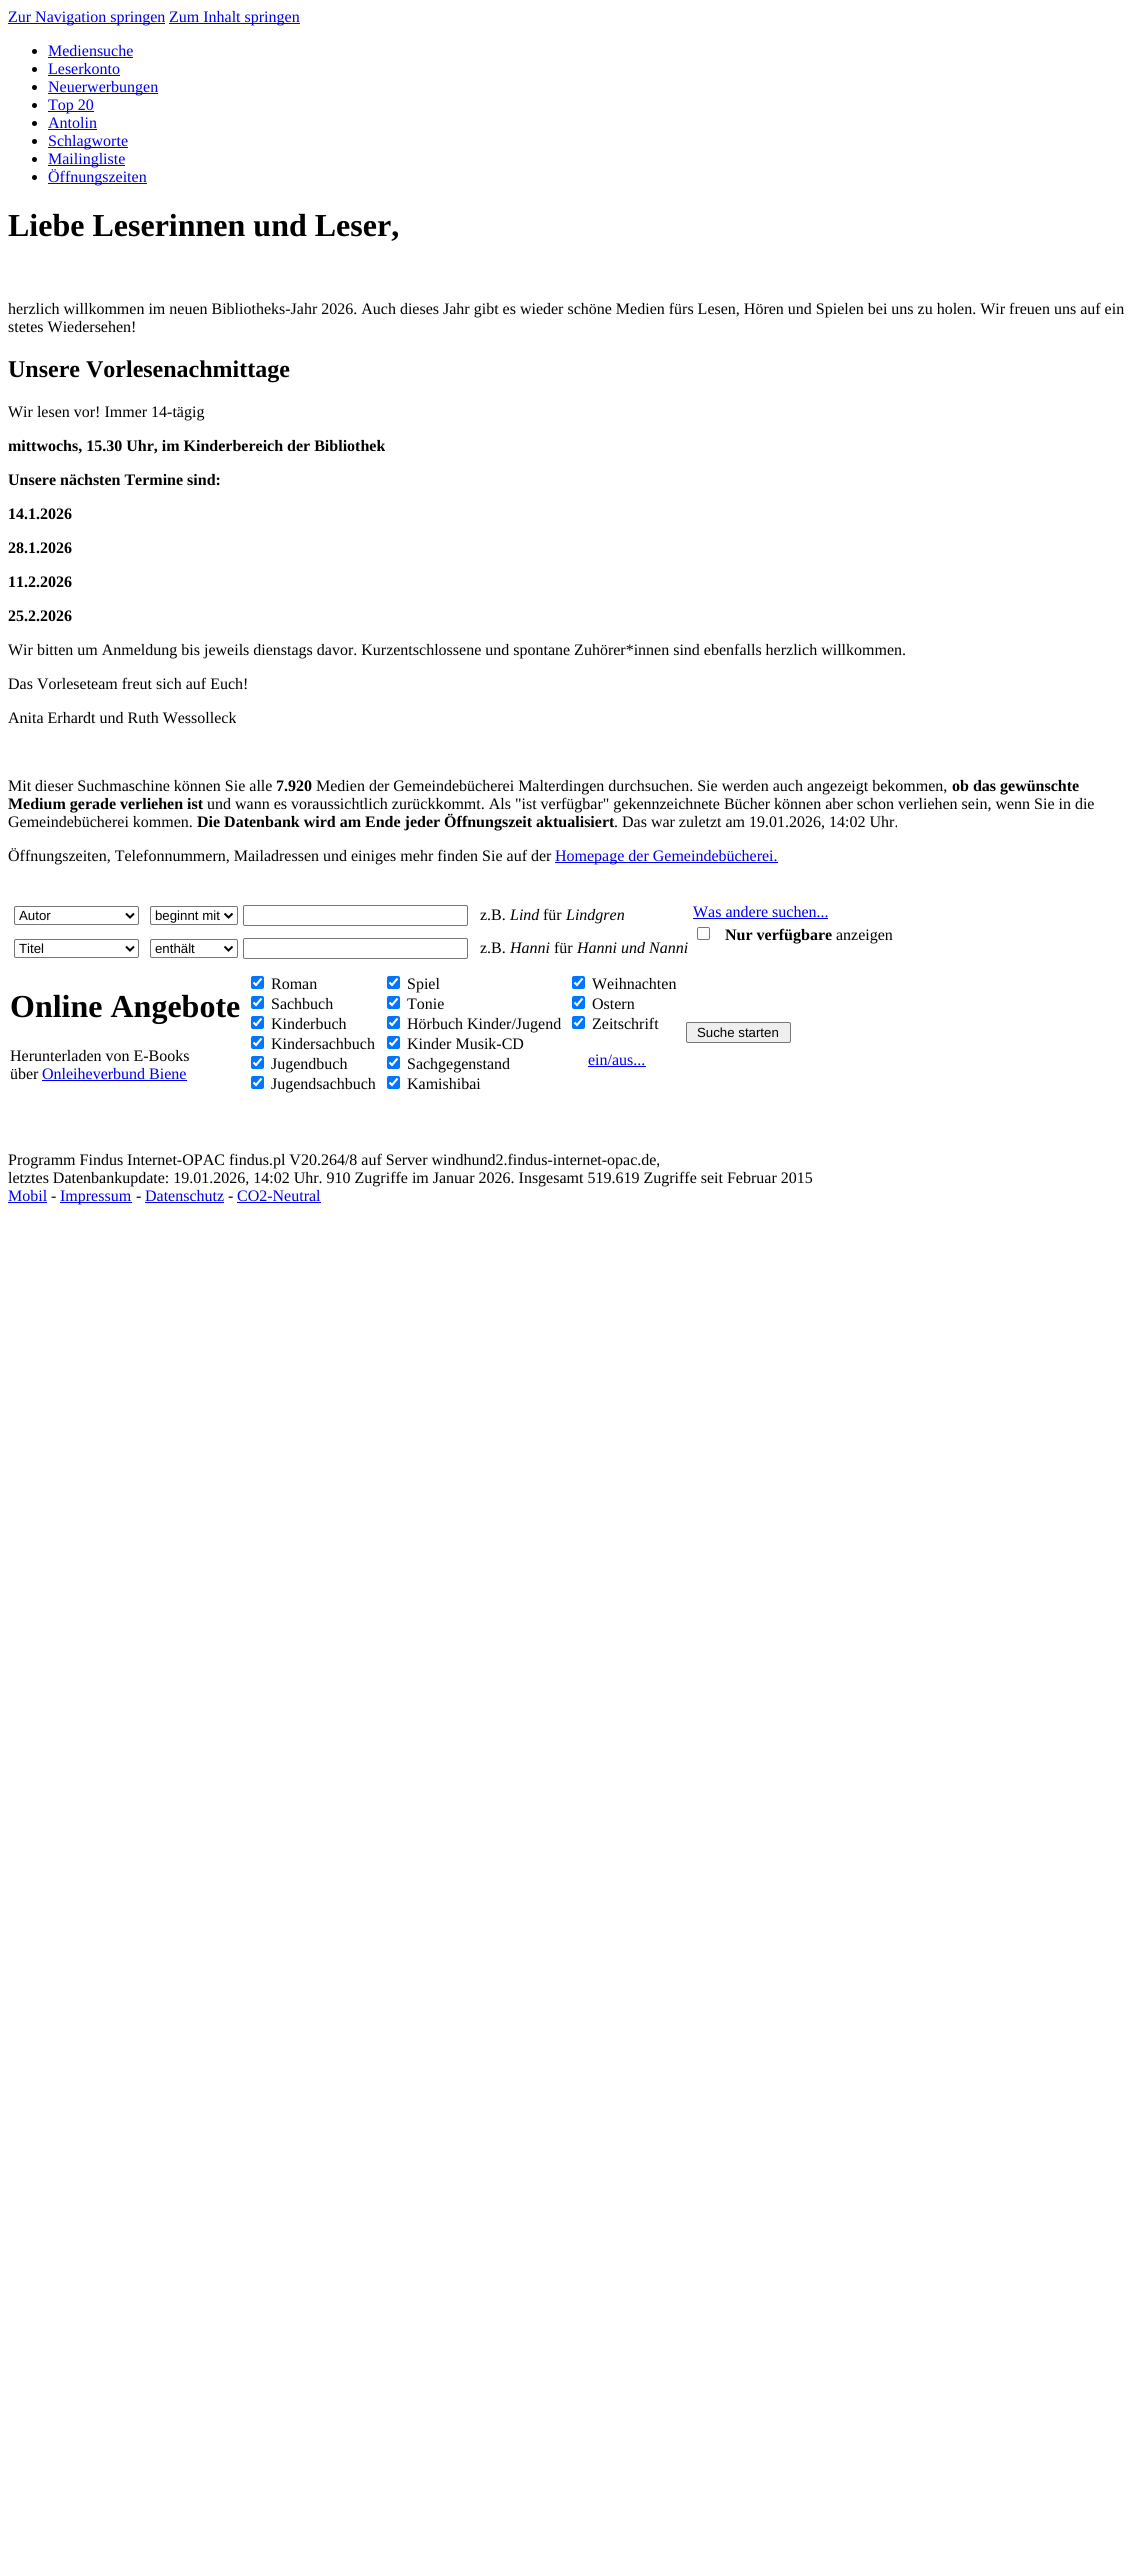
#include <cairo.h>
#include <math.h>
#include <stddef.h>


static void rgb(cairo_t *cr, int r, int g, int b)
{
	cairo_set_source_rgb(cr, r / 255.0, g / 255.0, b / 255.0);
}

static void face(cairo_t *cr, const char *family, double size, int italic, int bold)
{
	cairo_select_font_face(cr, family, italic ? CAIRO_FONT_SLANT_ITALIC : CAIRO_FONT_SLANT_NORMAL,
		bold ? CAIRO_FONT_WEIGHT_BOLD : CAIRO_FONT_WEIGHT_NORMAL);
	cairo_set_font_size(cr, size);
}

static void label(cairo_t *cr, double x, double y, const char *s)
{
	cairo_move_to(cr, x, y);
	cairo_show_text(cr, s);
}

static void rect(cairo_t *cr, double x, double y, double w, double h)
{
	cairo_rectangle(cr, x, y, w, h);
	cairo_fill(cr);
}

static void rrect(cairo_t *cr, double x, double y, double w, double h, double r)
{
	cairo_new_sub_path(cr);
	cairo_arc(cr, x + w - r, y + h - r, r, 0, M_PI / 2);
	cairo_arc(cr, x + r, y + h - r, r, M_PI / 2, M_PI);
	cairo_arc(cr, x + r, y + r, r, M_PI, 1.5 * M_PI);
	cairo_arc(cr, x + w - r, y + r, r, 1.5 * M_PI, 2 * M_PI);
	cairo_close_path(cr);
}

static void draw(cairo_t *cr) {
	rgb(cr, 255, 255, 255);
	cairo_paint(cr);
	rgb(cr, 0, 0, 238);
	rect(cr, 8, 23, 157, 1);
	face(cr, "Liberation Serif", 16, 0, 0);
	label(cr, 8, 22, "Zur Navigation springen");
	rect(cr, 169, 23, 131, 1);
	label(cr, 169, 22, "Zum Inhalt springen");
	rgb(cr, 0, 0, 0);
	cairo_new_path(cr);
	cairo_arc(cr, 34.5, 51.5, 2.5, 0, 2 * M_PI);
	cairo_fill(cr);
	rgb(cr, 0, 0, 238);
	label(cr, 48, 56, "Mediensuche");
	rect(cr, 48, 57, 85, 1);
	rgb(cr, 0, 0, 0);
	cairo_new_path(cr);
	cairo_arc(cr, 34.5, 69.5, 2.5, 0, 2 * M_PI);
	cairo_fill(cr);
	rgb(cr, 0, 0, 238);
	label(cr, 48, 74, "Leserkonto");
	rect(cr, 48, 75, 72, 1);
	rgb(cr, 0, 0, 0);
	cairo_new_path(cr);
	cairo_arc(cr, 34.5, 87.5, 2.5, 0, 2 * M_PI);
	cairo_fill(cr);
	rgb(cr, 0, 0, 238);
	rect(cr, 48, 93, 110, 1);
	label(cr, 48, 92, "Neuerwerbungen");
	rgb(cr, 0, 0, 0);
	cairo_new_path(cr);
	cairo_arc(cr, 34.5, 105.5, 2.5, 0, 2 * M_PI);
	cairo_fill(cr);
	rgb(cr, 0, 0, 238);
	rect(cr, 48, 111, 46, 1);
	label(cr, 48, 110, "Top 20");
	rgb(cr, 0, 0, 0);
	cairo_new_path(cr);
	cairo_arc(cr, 34.5, 123.5, 2.5, 0, 2 * M_PI);
	cairo_fill(cr);
	rgb(cr, 0, 0, 238);
	label(cr, 48, 128, "Antolin");
	rect(cr, 48, 129, 49, 1);
	rgb(cr, 0, 0, 0);
	cairo_new_path(cr);
	cairo_arc(cr, 34.5, 141.5, 2.5, 0, 2 * M_PI);
	cairo_fill(cr);
	rgb(cr, 0, 0, 238);
	rect(cr, 48, 147, 80, 1);
	label(cr, 48, 146, "Schlagworte");
	rgb(cr, 0, 0, 0);
	cairo_new_path(cr);
	cairo_arc(cr, 34.5, 159.5, 2.5, 0, 2 * M_PI);
	cairo_fill(cr);
	rgb(cr, 0, 0, 238);
	rect(cr, 48, 165, 77, 1);
	label(cr, 48, 164, "Mailingliste");
	rgb(cr, 0, 0, 0);
	cairo_new_path(cr);
	cairo_arc(cr, 34.5, 177.5, 2.5, 0, 2 * M_PI);
	cairo_fill(cr);
	rgb(cr, 0, 0, 238);
	rect(cr, 48, 183, 99, 1);
	label(cr, 48, 182, "Öffnungszeiten");
	face(cr, "Liberation Serif", 32, 0, 1);
	rgb(cr, 0, 0, 0);
	label(cr, 8, 236, "Liebe Leserinnen und Leser,");
	face(cr, "Liberation Serif", 16, 0, 0);
	label(cr, 8, 314, "herzlich willkommen im neuen Bibliotheks-Jahr 2026. Auch dieses Jahr gibt es wieder schöne Medien fürs Lesen, Hören und Spielen bei uns zu holen. Wir freuen uns auf ein");
	label(cr, 8, 332, "stetes Wiedersehen!");
	face(cr, "Liberation Serif", 24, 0, 1);
	label(cr, 8, 377, "Unsere Vorlesenachmittage");
	face(cr, "Liberation Serif", 16, 0, 0);
	label(cr, 8, 417, "Wir lesen vor! Immer 14-tägig");
	face(cr, "Liberation Serif", 16, 0, 1);
	label(cr, 8, 451, "mittwochs, 15.30 Uhr, im Kinderbereich der Bibliothek");
	label(cr, 8, 485, "Unsere nächsten Termine sind:");
	label(cr, 8, 519, "14.1.2026");
	label(cr, 8, 553, "28.1.2026");
	label(cr, 8, 587, "11.2.2026");
	label(cr, 8, 621, "25.2.2026");
	face(cr, "Liberation Serif", 16, 0, 0);
	label(cr, 8, 655, "Wir bitten um Anmeldung bis jeweils dienstags davor. Kurzentschlossene und spontane Zuhörer*innen sind ebenfalls herzlich willkommen.");
	label(cr, 8, 689, "Das Vorleseteam freut sich auf Euch!");
	label(cr, 8, 723, "Anita Erhardt und Ruth Wessolleck");
	label(cr, 8, 791, "Mit dieser Suchmaschine können Sie alle");
	face(cr, "Liberation Serif", 16, 0, 1);
	label(cr, 276, 791, "7.920");
	face(cr, "Liberation Serif", 16, 0, 0);
	label(cr, 316, 791, "Medien der Gemeindebücherei Malterdingen durchsuchen. Sie werden auch angezeigt bekommen,");
	face(cr, "Liberation Serif", 16, 0, 1);
	label(cr, 952, 791, "ob das gewünschte");
	label(cr, 8, 809, "Medium gerade verliehen ist");
	face(cr, "Liberation Serif", 16, 0, 0);
	label(cr, 207, 809, "und wann es voraussichtlich zurückkommt. Als \"ist verfügbar\" gekennzeichnete Bücher können aber schon verliehen sein, wenn Sie in die");
	label(cr, 8, 827, "Gemeindebücherei kommen.");
	face(cr, "Liberation Serif", 16, 0, 1);
	label(cr, 197, 827, "Die Datenbank wird am Ende jeder Öffnungszeit aktualisiert");
	face(cr, "Liberation Serif", 16, 0, 0);
	label(cr, 614, 827, ". Das war zuletzt am 19.01.2026, 14:02 Uhr.");
	label(cr, 8, 861, "Öffnungszeiten, Telefonnummern, Mailadressen und einiges mehr finden Sie auf der");
	rgb(cr, 0, 0, 238);
	rect(cr, 555, 862, 223, 1);
	label(cr, 555, 861, "Homepage der Gemeindebücherei.");
	rrect(cr, 14.5, 906.5, 124, 18, 1.5);
	rgb(cr, 118, 118, 118);
	cairo_set_line_width(cr, 1);
	cairo_stroke(cr);
	cairo_new_path(cr);
	cairo_move_to(cr, 126, 913.5);
	cairo_line_to(cr, 130, 917.5);
	cairo_line_to(cr, 134, 913.5);
	rgb(cr, 0, 0, 0);
	cairo_set_line_width(cr, 2);
	cairo_stroke(cr);
	face(cr, "Liberation Sans", 13.25, 0, 0);
	label(cr, 19, 920, "Autor");
	rrect(cr, 150.5, 906.5, 87, 18, 1.5);
	rgb(cr, 118, 118, 118);
	cairo_set_line_width(cr, 1);
	cairo_stroke(cr);
	cairo_new_path(cr);
	cairo_move_to(cr, 224.5, 913.5);
	cairo_line_to(cr, 228.5, 917.5);
	cairo_line_to(cr, 232.5, 913.5);
	rgb(cr, 0, 0, 0);
	cairo_set_line_width(cr, 2);
	cairo_stroke(cr);
	label(cr, 155, 920, "beginnt mit");
	rrect(cr, 243.5, 905.5, 224, 20, 1.5);
	rgb(cr, 118, 118, 118);
	cairo_set_line_width(cr, 1);
	cairo_stroke(cr);
	face(cr, "Liberation Serif", 16, 0, 0);
	rgb(cr, 0, 0, 0);
	label(cr, 480, 920, "z.B.");
	face(cr, "Liberation Serif", 16, 1, 0);
	label(cr, 510, 920, "Lind");
	face(cr, "Liberation Serif", 16, 0, 0);
	label(cr, 543, 920, "für");
	face(cr, "Liberation Serif", 16, 1, 0);
	label(cr, 566, 920, "Lindgren");
	face(cr, "Liberation Serif", 16, 0, 0);
	rgb(cr, 0, 0, 238);
	label(cr, 693, 917, "Was andere suchen...");
	rect(cr, 693, 918, 135, 1);
	rrect(cr, 697.5, 927.5, 12, 12, 1.5);
	rgb(cr, 118, 118, 118);
	cairo_stroke(cr);
	face(cr, "Liberation Serif", 16, 0, 1);
	rgb(cr, 0, 0, 0);
	label(cr, 725, 940, "Nur verfügbare");
	face(cr, "Liberation Serif", 16, 0, 0);
	label(cr, 836, 940, "anzeigen");
	rrect(cr, 14.5, 939.5, 124, 18, 1.5);
	rgb(cr, 118, 118, 118);
	cairo_stroke(cr);
	cairo_new_path(cr);
	cairo_move_to(cr, 126, 946.5);
	cairo_line_to(cr, 130, 950.5);
	cairo_line_to(cr, 134, 946.5);
	rgb(cr, 0, 0, 0);
	cairo_set_line_width(cr, 2);
	cairo_stroke(cr);
	face(cr, "Liberation Sans", 13.25, 0, 0);
	label(cr, 19, 953, "Titel");
	rrect(cr, 150.5, 939.5, 87, 18, 1.5);
	rgb(cr, 118, 118, 118);
	cairo_set_line_width(cr, 1);
	cairo_stroke(cr);
	cairo_new_path(cr);
	cairo_move_to(cr, 224.5, 946.5);
	cairo_line_to(cr, 228.5, 950.5);
	cairo_line_to(cr, 232.5, 946.5);
	rgb(cr, 0, 0, 0);
	cairo_set_line_width(cr, 2);
	cairo_stroke(cr);
	label(cr, 155, 953, "enthält");
	rrect(cr, 243.5, 938.5, 224, 20, 1.5);
	rgb(cr, 118, 118, 118);
	cairo_set_line_width(cr, 1);
	cairo_stroke(cr);
	face(cr, "Liberation Serif", 16, 0, 0);
	rgb(cr, 0, 0, 0);
	label(cr, 480, 953, "z.B.");
	face(cr, "Liberation Serif", 16, 1, 0);
	label(cr, 510, 953, "Hanni");
	face(cr, "Liberation Serif", 16, 0, 0);
	label(cr, 554, 953, "für");
	face(cr, "Liberation Serif", 16, 1, 0);
	label(cr, 577, 953, "Hanni und Nanni");
	face(cr, "Liberation Serif", 32, 0, 1);
	label(cr, 10, 1017, "Online Angebote");
	face(cr, "Liberation Serif", 16, 0, 0);
	label(cr, 10, 1061, "Herunterladen von E-Books");
	label(cr, 10, 1079, "über");
	rgb(cr, 0, 0, 238);
	label(cr, 42, 1079, "Onleiheverbund Biene");
	rect(cr, 42, 1080, 145, 1);
	rgb(cr, 0, 117, 255);
	rrect(cr, 251, 976, 13, 13, 2);
	cairo_fill(cr);
	cairo_new_path(cr);
	cairo_move_to(cr, 253.5, 982.5);
	cairo_line_to(cr, 256, 985);
	cairo_line_to(cr, 261.5, 978.5);
	rgb(cr, 255, 255, 255);
	cairo_set_line_width(cr, 2.1);
	cairo_stroke(cr);
	rgb(cr, 0, 0, 0);
	label(cr, 271, 989, "Roman");
	rgb(cr, 0, 117, 255);
	rrect(cr, 251, 996, 13, 13, 2);
	cairo_fill(cr);
	cairo_new_path(cr);
	cairo_move_to(cr, 253.5, 1002.5);
	cairo_line_to(cr, 256, 1005);
	cairo_line_to(cr, 261.5, 998.5);
	rgb(cr, 255, 255, 255);
	cairo_stroke(cr);
	rgb(cr, 0, 0, 0);
	label(cr, 271, 1009, "Sachbuch");
	rgb(cr, 0, 117, 255);
	rrect(cr, 251, 1016, 13, 13, 2);
	cairo_fill(cr);
	cairo_new_path(cr);
	cairo_move_to(cr, 253.5, 1022.5);
	cairo_line_to(cr, 256, 1025);
	cairo_line_to(cr, 261.5, 1018.5);
	rgb(cr, 255, 255, 255);
	cairo_stroke(cr);
	rgb(cr, 0, 0, 0);
	label(cr, 271, 1029, "Kinderbuch");
	rgb(cr, 0, 117, 255);
	rrect(cr, 251, 1036, 13, 13, 2);
	cairo_fill(cr);
	cairo_new_path(cr);
	cairo_move_to(cr, 253.5, 1042.5);
	cairo_line_to(cr, 256, 1045);
	cairo_line_to(cr, 261.5, 1038.5);
	rgb(cr, 255, 255, 255);
	cairo_stroke(cr);
	rgb(cr, 0, 0, 0);
	label(cr, 271, 1049, "Kindersachbuch");
	rgb(cr, 0, 117, 255);
	rrect(cr, 251, 1056, 13, 13, 2);
	cairo_fill(cr);
	cairo_new_path(cr);
	cairo_move_to(cr, 253.5, 1062.5);
	cairo_line_to(cr, 256, 1065);
	cairo_line_to(cr, 261.5, 1058.5);
	rgb(cr, 255, 255, 255);
	cairo_stroke(cr);
	rgb(cr, 0, 0, 0);
	label(cr, 271, 1069, "Jugendbuch");
	rgb(cr, 0, 117, 255);
	rrect(cr, 251, 1076, 13, 13, 2);
	cairo_fill(cr);
	cairo_new_path(cr);
	cairo_move_to(cr, 253.5, 1082.5);
	cairo_line_to(cr, 256, 1085);
	cairo_line_to(cr, 261.5, 1078.5);
	rgb(cr, 255, 255, 255);
	cairo_stroke(cr);
	rgb(cr, 0, 0, 0);
	label(cr, 271, 1089, "Jugendsachbuch");
	rgb(cr, 0, 117, 255);
	rrect(cr, 387, 976, 13, 13, 2);
	cairo_fill(cr);
	cairo_new_path(cr);
	cairo_move_to(cr, 389.5, 982.5);
	cairo_line_to(cr, 392, 985);
	cairo_line_to(cr, 397.5, 978.5);
	rgb(cr, 255, 255, 255);
	cairo_stroke(cr);
	rgb(cr, 0, 0, 0);
	label(cr, 407, 989, "Spiel");
	rgb(cr, 0, 117, 255);
	rrect(cr, 387, 996, 13, 13, 2);
	cairo_fill(cr);
	cairo_new_path(cr);
	cairo_move_to(cr, 389.5, 1002.5);
	cairo_line_to(cr, 392, 1005);
	cairo_line_to(cr, 397.5, 998.5);
	rgb(cr, 255, 255, 255);
	cairo_stroke(cr);
	rgb(cr, 0, 0, 0);
	label(cr, 407, 1009, "Tonie");
	rgb(cr, 0, 117, 255);
	rrect(cr, 387, 1016, 13, 13, 2);
	cairo_fill(cr);
	cairo_new_path(cr);
	cairo_move_to(cr, 389.5, 1022.5);
	cairo_line_to(cr, 392, 1025);
	cairo_line_to(cr, 397.5, 1018.5);
	rgb(cr, 255, 255, 255);
	cairo_stroke(cr);
	rgb(cr, 0, 0, 0);
	label(cr, 407, 1029, "Hörbuch Kinder/Jugend");
	rgb(cr, 0, 117, 255);
	rrect(cr, 387, 1036, 13, 13, 2);
	cairo_fill(cr);
	cairo_new_path(cr);
	cairo_move_to(cr, 389.5, 1042.5);
	cairo_line_to(cr, 392, 1045);
	cairo_line_to(cr, 397.5, 1038.5);
	rgb(cr, 255, 255, 255);
	cairo_stroke(cr);
	rgb(cr, 0, 0, 0);
	label(cr, 407, 1049, "Kinder Musik-CD");
	rgb(cr, 0, 117, 255);
	rrect(cr, 387, 1056, 13, 13, 2);
	cairo_fill(cr);
	cairo_new_path(cr);
	cairo_move_to(cr, 389.5, 1062.5);
	cairo_line_to(cr, 392, 1065);
	cairo_line_to(cr, 397.5, 1058.5);
	rgb(cr, 255, 255, 255);
	cairo_stroke(cr);
	rgb(cr, 0, 0, 0);
	label(cr, 407, 1069, "Sachgegenstand");
	rgb(cr, 0, 117, 255);
	rrect(cr, 387, 1076, 13, 13, 2);
	cairo_fill(cr);
	cairo_new_path(cr);
	cairo_move_to(cr, 389.5, 1082.5);
	cairo_line_to(cr, 392, 1085);
	cairo_line_to(cr, 397.5, 1078.5);
	rgb(cr, 255, 255, 255);
	cairo_stroke(cr);
	rgb(cr, 0, 0, 0);
	label(cr, 407, 1089, "Kamishibai");
	rgb(cr, 0, 117, 255);
	rrect(cr, 572, 976, 13, 13, 2);
	cairo_fill(cr);
	cairo_new_path(cr);
	cairo_move_to(cr, 574.5, 982.5);
	cairo_line_to(cr, 577, 985);
	cairo_line_to(cr, 582.5, 978.5);
	rgb(cr, 255, 255, 255);
	cairo_stroke(cr);
	rgb(cr, 0, 0, 0);
	label(cr, 592, 989, "Weihnachten");
	rgb(cr, 0, 117, 255);
	rrect(cr, 572, 996, 13, 13, 2);
	cairo_fill(cr);
	cairo_new_path(cr);
	cairo_move_to(cr, 574.5, 1002.5);
	cairo_line_to(cr, 577, 1005);
	cairo_line_to(cr, 582.5, 998.5);
	rgb(cr, 255, 255, 255);
	cairo_stroke(cr);
	rgb(cr, 0, 0, 0);
	label(cr, 592, 1009, "Ostern");
	rgb(cr, 0, 117, 255);
	rrect(cr, 572, 1016, 13, 13, 2);
	cairo_fill(cr);
	cairo_new_path(cr);
	cairo_move_to(cr, 574.5, 1022.5);
	cairo_line_to(cr, 577, 1025);
	cairo_line_to(cr, 582.5, 1018.5);
	rgb(cr, 255, 255, 255);
	cairo_stroke(cr);
	rgb(cr, 0, 0, 0);
	label(cr, 592, 1029, "Zeitschrift");
	rgb(cr, 0, 0, 238);
	label(cr, 588, 1065, "ein/aus...");
	rect(cr, 588, 1066, 58, 1);
	rgb(cr, 239, 239, 239);
	rrect(cr, 686.5, 1022.5, 104, 20, 1.5);
	cairo_fill_preserve(cr);
	rgb(cr, 118, 118, 118);
	cairo_set_line_width(cr, 1);
	cairo_stroke(cr);
	face(cr, "Liberation Sans", 13.25, 0, 0);
	rgb(cr, 0, 0, 0);
	label(cr, 697, 1037, "Suche starten");
	face(cr, "Liberation Serif", 16, 0, 0);
	label(cr, 8, 1165, "Programm Findus Internet-OPAC findus.pl V20.264/8 auf Server windhund2.findus-internet-opac.de,");
	label(cr, 8, 1183, "letztes Datenbankupdate: 19.01.2026, 14:02 Uhr. 910 Zugriffe im Januar 2026. Insgesamt 519.619 Zugriffe seit Februar 2015");
	rgb(cr, 0, 0, 238);
	label(cr, 8, 1201, "Mobil");
	rect(cr, 8, 1202, 39, 1);
	rgb(cr, 0, 0, 0);
	label(cr, 51, 1201, "-");
	rgb(cr, 0, 0, 238);
	rect(cr, 60, 1202, 72, 1);
	label(cr, 60, 1201, "Impressum");
	rgb(cr, 0, 0, 0);
	label(cr, 136, 1201, "-");
	rgb(cr, 0, 0, 238);
	label(cr, 145, 1201, "Datenschutz");
	rect(cr, 145, 1202, 79, 1);
	rgb(cr, 0, 0, 0);
	label(cr, 228, 1201, "-");
	rgb(cr, 0, 0, 238);
	label(cr, 237, 1201, "CO2-Neutral");
	rect(cr, 237, 1202, 84, 1);
}

int main(void) {
	cairo_surface_t *surface = cairo_image_surface_create(CAIRO_FORMAT_RGB24, 1138, 2552);
	cairo_t *cr = cairo_create(surface);
	cairo_font_options_t *options = cairo_font_options_create();
	cairo_font_options_set_hint_metrics(options, CAIRO_HINT_METRICS_OFF);
	cairo_font_options_set_hint_style(options, CAIRO_HINT_STYLE_NONE);
	cairo_set_font_options(cr, options);
	cairo_set_miter_limit(cr, 4);
	draw(cr);
	cairo_surface_write_to_png(surface, "render.png");
	cairo_font_options_destroy(options);
	cairo_destroy(cr);
	cairo_surface_destroy(surface);
	return 0;
}
